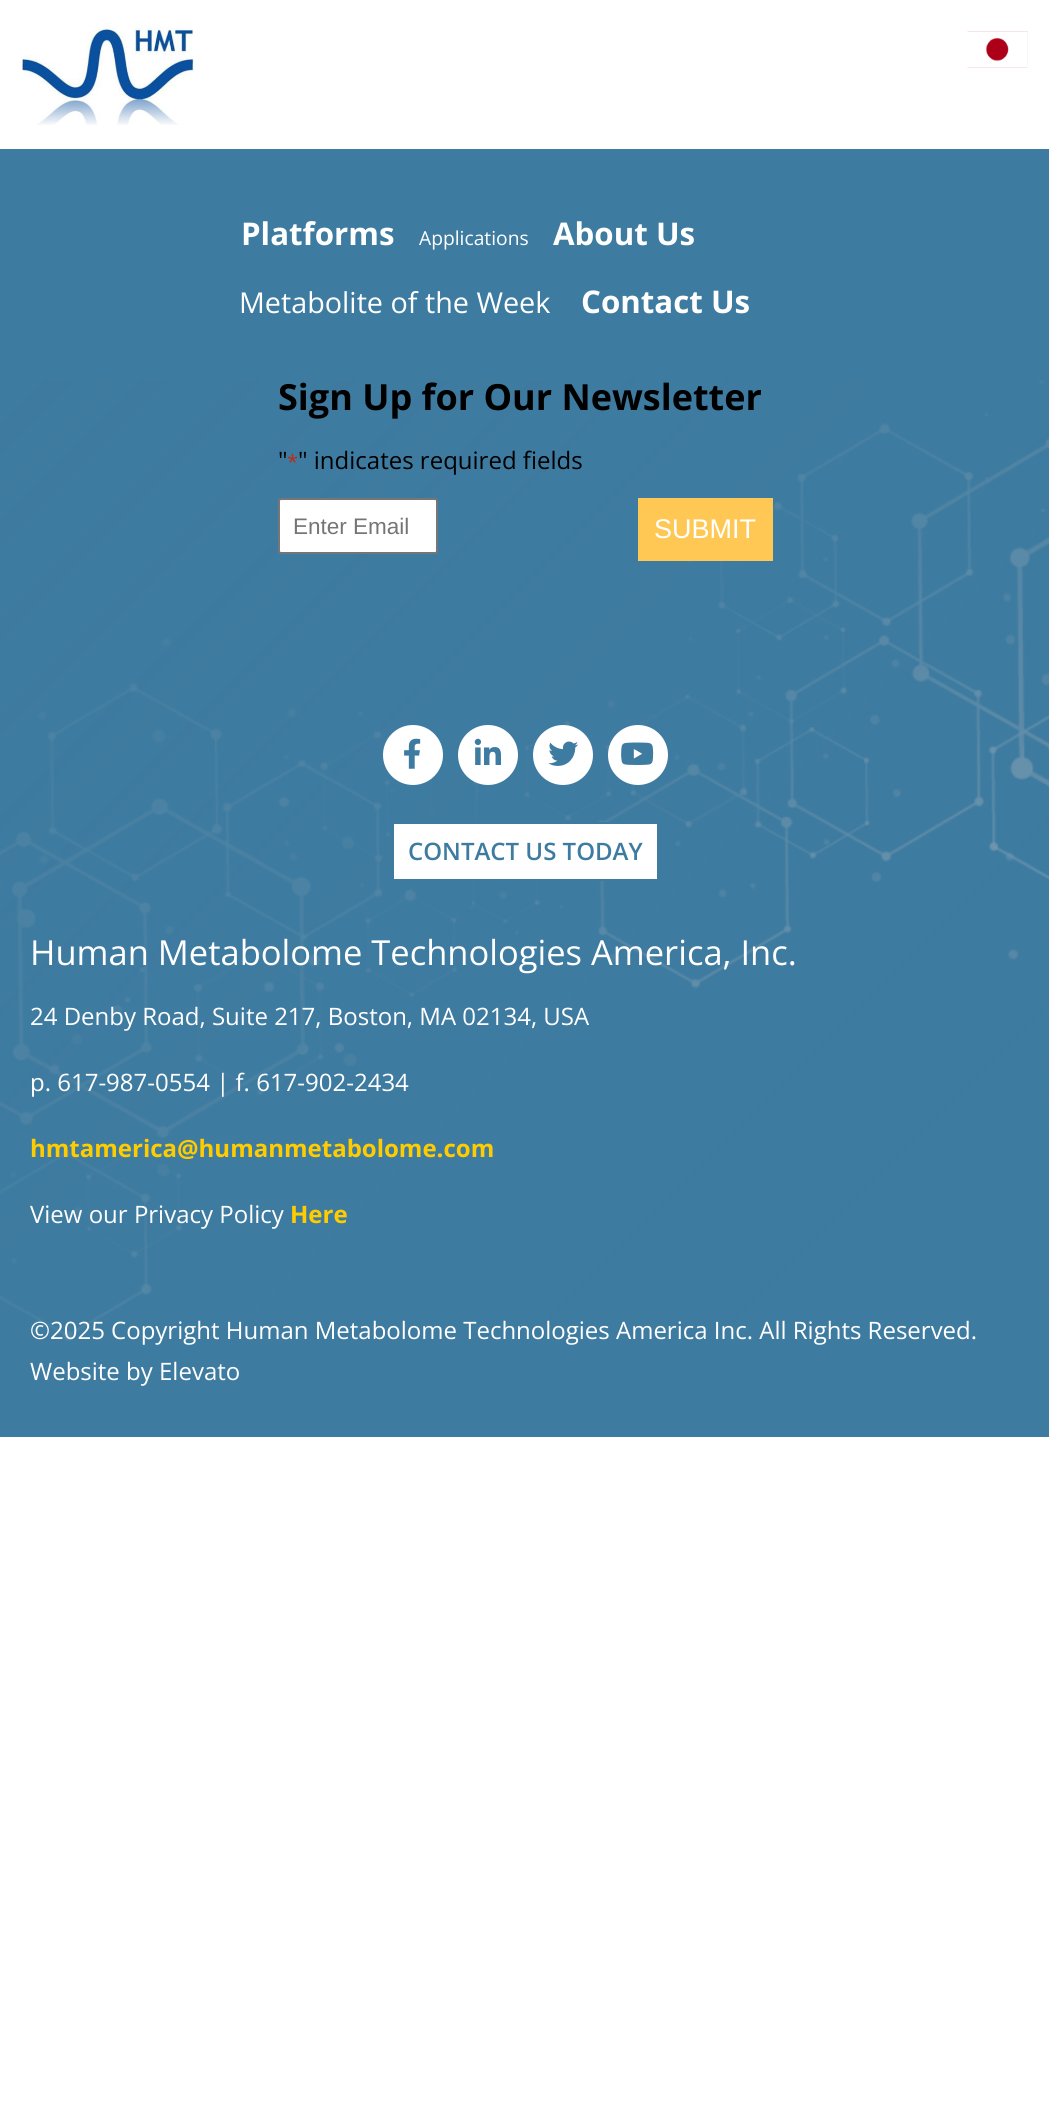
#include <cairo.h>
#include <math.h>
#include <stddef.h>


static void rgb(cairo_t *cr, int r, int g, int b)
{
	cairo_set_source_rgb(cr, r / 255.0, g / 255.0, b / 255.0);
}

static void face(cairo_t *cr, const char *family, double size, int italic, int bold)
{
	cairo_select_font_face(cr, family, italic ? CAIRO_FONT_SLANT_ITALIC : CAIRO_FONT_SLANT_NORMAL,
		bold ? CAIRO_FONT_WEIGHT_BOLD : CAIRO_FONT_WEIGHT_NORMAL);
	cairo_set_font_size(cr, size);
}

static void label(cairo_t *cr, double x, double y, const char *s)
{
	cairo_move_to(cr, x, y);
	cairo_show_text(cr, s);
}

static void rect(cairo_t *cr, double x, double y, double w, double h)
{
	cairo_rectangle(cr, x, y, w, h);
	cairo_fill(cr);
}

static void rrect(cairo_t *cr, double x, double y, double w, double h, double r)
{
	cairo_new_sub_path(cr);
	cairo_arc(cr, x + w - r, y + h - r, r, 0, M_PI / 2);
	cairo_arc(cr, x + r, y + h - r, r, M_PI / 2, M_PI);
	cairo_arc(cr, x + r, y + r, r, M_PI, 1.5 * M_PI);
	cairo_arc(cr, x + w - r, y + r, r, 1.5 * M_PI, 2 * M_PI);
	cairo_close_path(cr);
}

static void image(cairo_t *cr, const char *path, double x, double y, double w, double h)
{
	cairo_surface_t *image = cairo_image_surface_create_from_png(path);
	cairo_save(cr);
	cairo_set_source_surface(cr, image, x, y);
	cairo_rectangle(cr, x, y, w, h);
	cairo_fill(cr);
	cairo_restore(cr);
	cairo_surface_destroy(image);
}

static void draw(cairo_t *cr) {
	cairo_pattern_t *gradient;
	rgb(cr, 255, 255, 255);
	cairo_paint(cr);
	image(cr, "image0.png", 22, 22, 172, 103);
	image(cr, "image1.png", 967, 31, 61, 37);
	rgb(cr, 62, 123, 160);
	rect(cr, 0, 149, 1049, 1288);
	face(cr, "Open Sans", 31.25, 0, 1);
	rgb(cr, 255, 255, 255);
	label(cr, 241, 245, "Platforms");
	face(cr, "Open Sans", 19.25, 0, 0);
	label(cr, 419, 245, "Applications");
	face(cr, "Open Sans", 31.25, 0, 1);
	label(cr, 553, 245, "About Us");
	face(cr, "Open Sans", 28.75, 0, 0);
	label(cr, 239, 313, "Metabolite of the Week");
	face(cr, "Open Sans", 31.25, 0, 1);
	label(cr, 581, 313, "Contact Us");
	image(cr, "image6.png", 0, 379, 1049, 962);
	gradient = cairo_pattern_create_linear(-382, 531, 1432, 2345);
	cairo_pattern_add_color_stop_rgba(gradient, 0, 0.243, 0.482, 0.627, 0.8);
	cairo_pattern_add_color_stop_rgba(gradient, 0.33, 0.243, 0.482, 0.627, 0.7);
	cairo_pattern_add_color_stop_rgba(gradient, 0.5, 0.243, 0.482, 0.627, 0);
	cairo_pattern_add_color_stop_rgba(gradient, 0.66, 0.243, 0.482, 0.627, 0.7);
	cairo_pattern_add_color_stop_rgba(gradient, 1, 0.243, 0.482, 0.627, 0.8);
	cairo_set_source(cr, gradient);
	cairo_pattern_destroy(gradient);
	rect(cr, 0, 379, 1049, 962);
	face(cr, "Open Sans", 36, 0, 1);
	rgb(cr, 0, 0, 0);
	label(cr, 278, 410, "Sign Up for Our Newsletter");
	face(cr, "Open Sans", 24, 0, 0);
	label(cr, 278, 469, "\"");
	face(cr, "Open Sans", 20, 0, 0);
	rgb(cr, 192, 43, 10);
	label(cr, 287, 469, "*");
	face(cr, "Open Sans", 24, 0, 0);
	rgb(cr, 0, 0, 0);
	label(cr, 298, 469, "\" indicates required fields");
	rgb(cr, 255, 255, 255);
	rrect(cr, 279, 499, 158, 54, 2);
	cairo_fill_preserve(cr);
	rgb(cr, 118, 118, 118);
	cairo_stroke(cr);
	face(cr, "Liberation Sans", 22.5, 0, 0);
	rgb(cr, 117, 117, 117);
	label(cr, 293, 534, "Enter Email");
	rgb(cr, 255, 200, 84);
	rect(cr, 638, 498, 135, 63);
	face(cr, "Liberation Sans", 27, 0, 0);
	rgb(cr, 255, 255, 255);
	label(cr, 654, 538, "SUBMIT");
	cairo_new_path(cr);
	cairo_arc(cr, 413, 755, 30, 0, 2 * M_PI);
	cairo_fill(cr);
	image(cr, "image2.png", 404, 738, 17, 31);
	cairo_arc(cr, 488, 755, 30, 0, 2 * M_PI);
	cairo_fill(cr);
	image(cr, "image3.png", 474, 738, 27, 27);
	cairo_arc(cr, 563, 755, 30, 0, 2 * M_PI);
	cairo_fill(cr);
	image(cr, "image4.png", 548, 741, 31, 25);
	cairo_arc(cr, 638, 755, 30, 0, 2 * M_PI);
	cairo_fill(cr);
	image(cr, "image5.png", 621, 742, 33, 23);
	cairo_rectangle(cr, 393, 823, 265, 57);
	cairo_fill_preserve(cr);
	rgb(cr, 62, 123, 160);
	cairo_stroke(cr);
	face(cr, "Open Sans SemiBold", 24, 0, 0);
	label(cr, 408, 860, "CONTACT US TODAY");
	face(cr, "Open Sans", 34.5, 0, 0);
	rgb(cr, 255, 255, 255);
	label(cr, 30, 965, "Human Metabolome Technologies America, Inc.");
	face(cr, "Open Sans", 24, 0, 0);
	label(cr, 30, 1025, "24 Denby Road, Suite 217, Boston, MA 02134, USA");
	label(cr, 30, 1091, "p. 617-987-0554 | f. 617-902-2434");
	face(cr, "Open Sans", 24, 0, 1);
	rgb(cr, 255, 204, 0);
	label(cr, 30, 1157, "hmtamerica@humanmetabolome.com");
	face(cr, "Open Sans", 24, 0, 0);
	rgb(cr, 255, 255, 255);
	label(cr, 30, 1223, "View our Privacy Policy");
	face(cr, "Open Sans", 24, 0, 1);
	rgb(cr, 255, 204, 0);
	label(cr, 290, 1223, "Here");
	face(cr, "Open Sans", 24, 0, 0);
	rgb(cr, 255, 255, 255);
	label(cr, 30, 1339, "©2025 Copyright Human Metabolome Technologies America Inc. All Rights Reserved.");
	label(cr, 30, 1380, "Website by Elevato");
}

int main(void) {
	cairo_surface_t *surface = cairo_image_surface_create(CAIRO_FORMAT_RGB24, 1049, 2111);
	cairo_t *cr = cairo_create(surface);
	cairo_font_options_t *options = cairo_font_options_create();
	cairo_font_options_set_hint_metrics(options, CAIRO_HINT_METRICS_OFF);
	cairo_font_options_set_hint_style(options, CAIRO_HINT_STYLE_NONE);
	cairo_set_font_options(cr, options);
	cairo_set_miter_limit(cr, 4);
	draw(cr);
	cairo_surface_write_to_png(surface, "render.png");
	cairo_font_options_destroy(options);
	cairo_destroy(cr);
	cairo_surface_destroy(surface);
	return 0;
}
